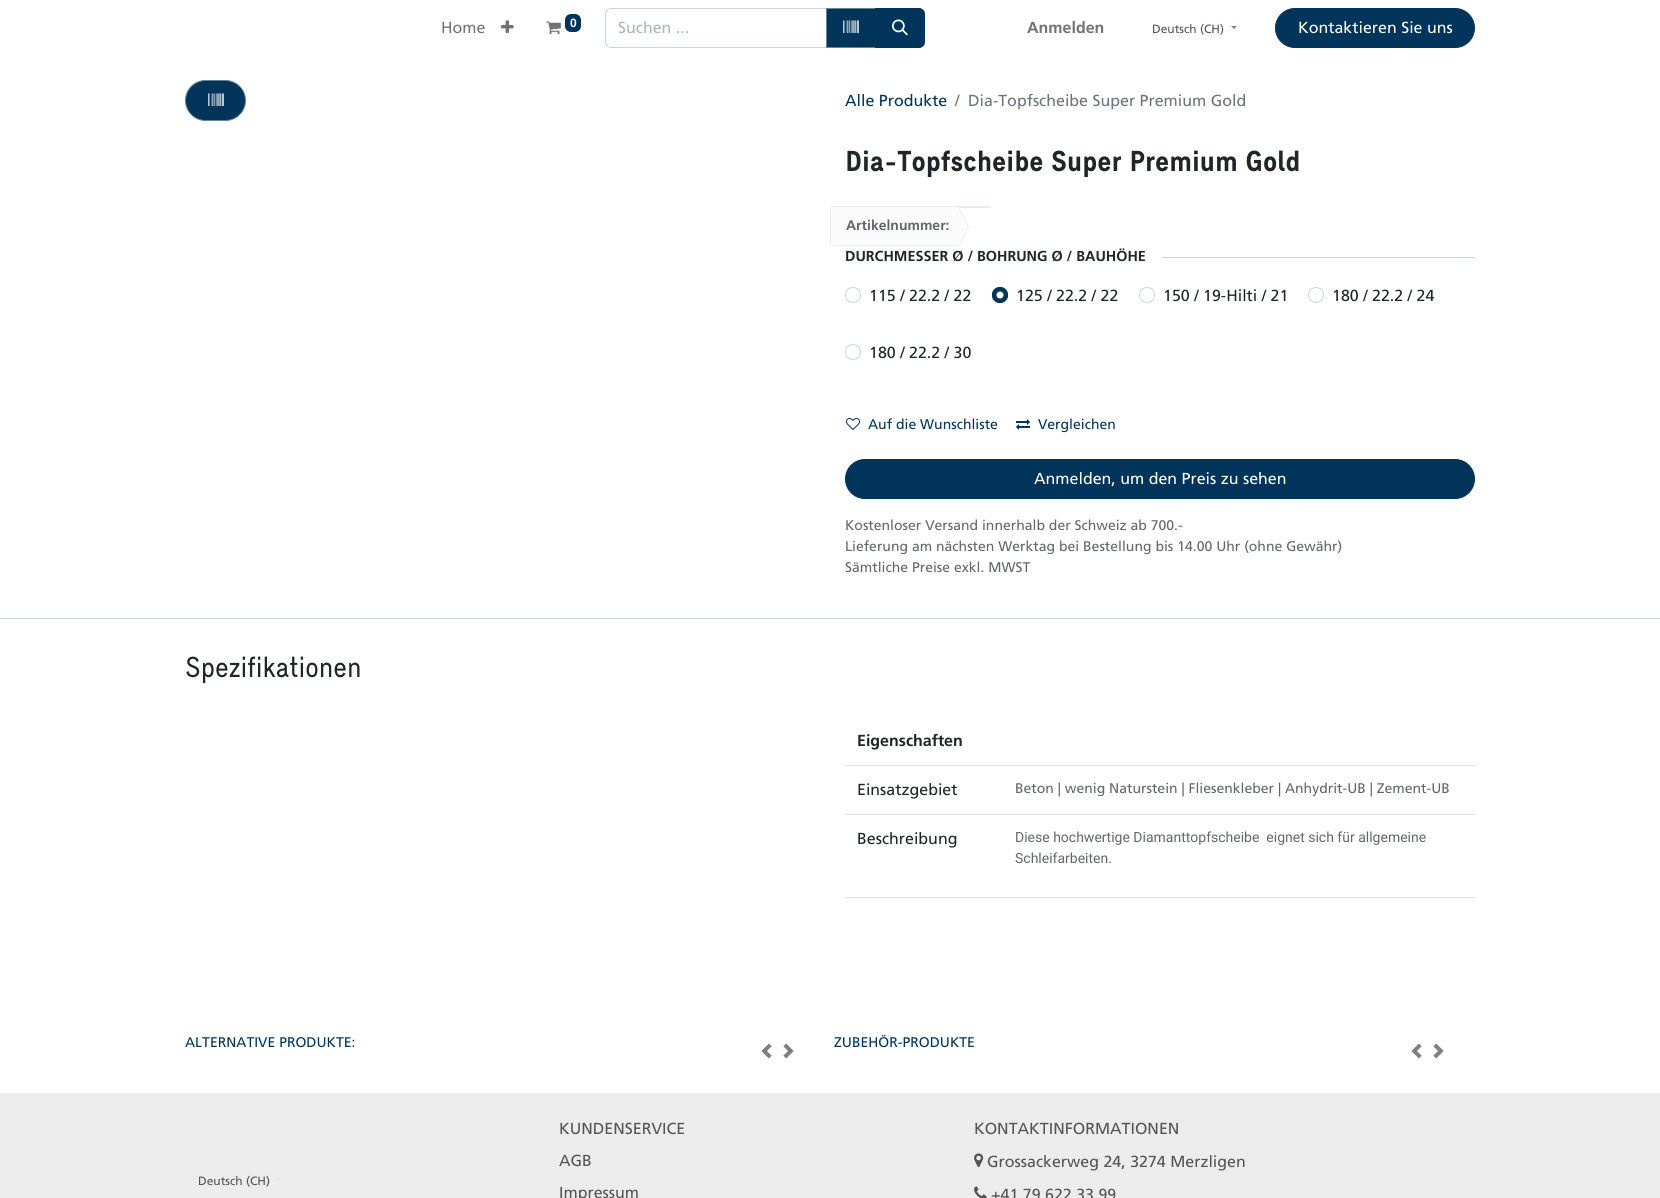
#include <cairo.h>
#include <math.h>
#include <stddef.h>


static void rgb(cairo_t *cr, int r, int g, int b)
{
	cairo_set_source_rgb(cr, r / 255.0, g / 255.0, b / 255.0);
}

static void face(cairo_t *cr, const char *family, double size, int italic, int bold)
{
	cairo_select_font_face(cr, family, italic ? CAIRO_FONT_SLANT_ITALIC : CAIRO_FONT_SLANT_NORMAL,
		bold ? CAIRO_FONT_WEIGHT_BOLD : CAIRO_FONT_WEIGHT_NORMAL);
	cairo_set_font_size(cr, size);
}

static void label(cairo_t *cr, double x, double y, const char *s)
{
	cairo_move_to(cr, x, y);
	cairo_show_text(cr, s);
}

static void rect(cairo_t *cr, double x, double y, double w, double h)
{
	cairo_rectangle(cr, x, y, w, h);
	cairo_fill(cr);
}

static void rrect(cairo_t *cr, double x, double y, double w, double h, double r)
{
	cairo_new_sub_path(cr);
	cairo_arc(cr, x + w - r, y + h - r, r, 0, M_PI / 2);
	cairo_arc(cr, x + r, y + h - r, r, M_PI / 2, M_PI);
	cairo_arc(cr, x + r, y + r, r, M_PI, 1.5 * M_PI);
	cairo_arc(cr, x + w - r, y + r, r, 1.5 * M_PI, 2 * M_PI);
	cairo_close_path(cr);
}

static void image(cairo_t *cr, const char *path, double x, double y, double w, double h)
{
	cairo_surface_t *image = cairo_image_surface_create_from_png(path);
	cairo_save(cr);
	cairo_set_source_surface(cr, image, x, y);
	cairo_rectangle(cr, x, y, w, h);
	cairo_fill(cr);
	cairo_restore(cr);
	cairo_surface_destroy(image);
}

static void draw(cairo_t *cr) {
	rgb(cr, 255, 255, 255);
	cairo_paint(cr);
	face(cr, "Frutiger", 16, 0, 0);
	rgb(cr, 115, 115, 115);
	label(cr, 441, 33, "Home");
	image(cr, "image0.png", 501, 20, 13, 13);
	image(cr, "image1.png", 546, 21, 15, 14);
	rgb(cr, 0, 52, 90);
	rrect(cr, 565, 14, 16, 18, 6);
	cairo_fill(cr);
	face(cr, "Frutiger", 12, 0, 1);
	rgb(cr, 255, 255, 255);
	label(cr, 570, 27, "0");
	cairo_new_path(cr);
	cairo_move_to(cr, 611, 8.5);
	cairo_line_to(cr, 826.5, 8.5);
	cairo_line_to(cr, 826.5, 47.5);
	cairo_line_to(cr, 611, 47.5);
	cairo_curve_to(cr, 608, 47.5, 605.5, 45, 605.5, 42);
	cairo_line_to(cr, 605.5, 14);
	cairo_curve_to(cr, 605.5, 11, 608, 8.5, 611, 8.5);
	cairo_close_path(cr);
	rgb(cr, 206, 212, 218);
	cairo_set_line_width(cr, 1);
	cairo_stroke(cr);
	face(cr, "Frutiger", 16, 0, 0);
	rgb(cr, 173, 181, 189);
	label(cr, 618, 33, "Suchen ...");
	rgb(cr, 0, 52, 90);
	cairo_rectangle(cr, 826.5, 8.5, 49, 39);
	cairo_fill_preserve(cr);
	rgb(cr, 101, 135, 145);
	cairo_stroke(cr);
	image(cr, "image2.png", 843, 20, 16, 13);
	rgb(cr, 0, 52, 90);
	cairo_new_path(cr);
	cairo_move_to(cr, 875.5, 8.5);
	cairo_line_to(cr, 919, 8.5);
	cairo_curve_to(cr, 922, 8.5, 924.5, 11, 924.5, 14);
	cairo_line_to(cr, 924.5, 42);
	cairo_curve_to(cr, 924.5, 45, 922, 47.5, 919, 47.5);
	cairo_line_to(cr, 875.5, 47.5);
	cairo_close_path(cr);
	cairo_fill_preserve(cr);
	cairo_stroke(cr);
	image(cr, "image3.png", 892, 19, 16, 17);
	face(cr, "Frutiger", 16, 0, 1);
	rgb(cr, 115, 115, 115);
	label(cr, 1027, 33, "Anmelden");
	face(cr, "Frutiger", 12, 0, 0);
	rgb(cr, 85, 85, 85);
	label(cr, 1152, 33, "Deutsch (CH)");
	rgb(cr, 101, 135, 145);
	cairo_new_path(cr);
	cairo_move_to(cr, 1231, 26);
	cairo_line_to(cr, 1237, 26);
	cairo_line_to(cr, 1234, 29);
	cairo_close_path(cr);
	cairo_fill(cr);
	rgb(cr, 0, 52, 90);
	rrect(cr, 1275.5, 8.5, 199, 39, 19.5);
	cairo_fill_preserve(cr);
	cairo_stroke(cr);
	face(cr, "Frutiger", 16, 0, 0);
	rgb(cr, 255, 255, 255);
	label(cr, 1298, 33, "Kontaktieren Sie uns");
	rgb(cr, 0, 52, 90);
	rrect(cr, 185.5, 80.5, 60, 40, 20);
	cairo_fill_preserve(cr);
	rgb(cr, 101, 135, 145);
	cairo_stroke(cr);
	image(cr, "image2.png", 208, 93, 16, 13);
	rgb(cr, 0, 52, 90);
	label(cr, 845, 106, "Alle Produkte");
	rgb(cr, 108, 117, 125);
	label(cr, 955, 106, "/");
	label(cr, 968, 106, "Dia-Topfscheibe Super Premium Gold");
	face(cr, "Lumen", 28, 0, 1);
	rgb(cr, 33, 37, 41);
	label(cr, 845, 171, "Dia-Topfscheibe Super Premium Gold");
	rgb(cr, 233, 236, 239);
	cairo_new_path(cr);
	cairo_move_to(cr, 959, 206);
	cairo_line_to(cr, 990, 206);
	cairo_curve_to(cr, 990.5, 206, 991, 206.5, 991, 207);
	cairo_curve_to(cr, 991, 207.5, 990.5, 208, 990, 208);
	cairo_line_to(cr, 959, 208);
	cairo_close_path(cr);
	cairo_fill(cr);
	rgb(cr, 251, 251, 251);
	cairo_new_path(cr);
	cairo_move_to(cr, 834, 207);
	cairo_line_to(cr, 959, 207);
	cairo_line_to(cr, 959, 245);
	cairo_line_to(cr, 834, 245);
	cairo_curve_to(cr, 832.5, 245, 831, 243.5, 831, 242);
	cairo_line_to(cr, 831, 210);
	cairo_curve_to(cr, 831, 208.5, 832.5, 207, 834, 207);
	cairo_close_path(cr);
	cairo_fill(cr);
	rgb(cr, 233, 236, 239);
	cairo_set_fill_rule(cr, CAIRO_FILL_RULE_EVEN_ODD);
	cairo_new_path(cr);
	cairo_move_to(cr, 834, 206);
	cairo_line_to(cr, 959, 206);
	cairo_line_to(cr, 959, 246);
	cairo_line_to(cr, 834, 246);
	cairo_curve_to(cr, 832, 246, 830, 244, 830, 242);
	cairo_line_to(cr, 830, 210);
	cairo_curve_to(cr, 830, 208, 832, 206, 834, 206);
	cairo_close_path(cr);
	cairo_move_to(cr, 834, 207);
	cairo_line_to(cr, 959, 207);
	cairo_line_to(cr, 959, 245);
	cairo_line_to(cr, 834, 245);
	cairo_curve_to(cr, 832, 245, 831, 244, 831, 242);
	cairo_line_to(cr, 831, 210);
	cairo_curve_to(cr, 831, 208, 832, 207, 834, 207);
	cairo_close_path(cr);
	cairo_fill(cr);
	face(cr, "Frutiger", 14, 0, 1);
	rgb(cr, 100, 102, 105);
	label(cr, 846, 230, "Artikelnummer:");
	rgb(cr, 233, 236, 239);
	cairo_set_fill_rule(cr, CAIRO_FILL_RULE_WINDING);
	cairo_new_path(cr);
	cairo_move_to(cr, 959, 247);
	cairo_line_to(cr, 959, 207);
	cairo_line_to(cr, 969, 227);
	cairo_close_path(cr);
	cairo_fill(cr);
	rgb(cr, 251, 251, 251);
	cairo_new_path(cr);
	cairo_move_to(cr, 958, 247);
	cairo_line_to(cr, 958, 207);
	cairo_line_to(cr, 968, 227);
	cairo_close_path(cr);
	cairo_fill(cr);
	face(cr, "Frutiger", 14.4, 0, 1);
	rgb(cr, 33, 37, 41);
	label(cr, 845, 261, "DURCHMESSER Ø / BOHRUNG Ø / BAUHÖHE");
	rgb(cr, 206, 212, 218);
	rect(cr, 1162, 257, 313, 1);
	cairo_new_path(cr);
	cairo_arc(cr, 853, 295, 7.5, 0, 2 * M_PI);
	cairo_stroke(cr);
	face(cr, "Frutiger", 16, 0, 0);
	rgb(cr, 33, 37, 41);
	label(cr, 869, 301, "115 / 22.2 / 22");
	rgb(cr, 0, 52, 90);
	cairo_new_path(cr);
	cairo_arc(cr, 1000, 295, 8, 0, 2 * M_PI);
	cairo_fill(cr);
	rgb(cr, 255, 255, 255);
	cairo_arc(cr, 1000, 295, 3.5, 0, 2 * M_PI);
	cairo_fill(cr);
	cairo_arc(cr, 1000, 295, 7.5, 0, 2 * M_PI);
	rgb(cr, 0, 52, 90);
	cairo_stroke(cr);
	rgb(cr, 33, 37, 41);
	label(cr, 1016, 301, "125 / 22.2 / 22");
	cairo_new_path(cr);
	cairo_arc(cr, 1147, 295, 7.5, 0, 2 * M_PI);
	rgb(cr, 206, 212, 218);
	cairo_stroke(cr);
	rgb(cr, 33, 37, 41);
	label(cr, 1163, 301, "150 / 19-Hilti / 21");
	cairo_new_path(cr);
	cairo_arc(cr, 1316, 295, 7.5, 0, 2 * M_PI);
	rgb(cr, 206, 212, 218);
	cairo_stroke(cr);
	rgb(cr, 33, 37, 41);
	label(cr, 1332, 301, "180 / 22.2 / 24");
	cairo_new_path(cr);
	cairo_arc(cr, 853, 352, 7.5, 0, 2 * M_PI);
	rgb(cr, 206, 212, 218);
	cairo_stroke(cr);
	rgb(cr, 33, 37, 41);
	label(cr, 869, 358, "180 / 22.2 / 30");
	image(cr, "image4.png", 846, 418, 14, 12);
	face(cr, "Frutiger", 14, 0, 0);
	rgb(cr, 0, 52, 90);
	label(cr, 868, 429, "Auf die Wunschliste");
	image(cr, "image5.png", 1016, 419, 14, 11);
	label(cr, 1038, 429, "Vergleichen");
	rrect(cr, 845.5, 459.5, 629, 39, 19.5);
	cairo_fill_preserve(cr);
	cairo_stroke(cr);
	face(cr, "Frutiger", 16, 0, 0);
	rgb(cr, 255, 255, 255);
	label(cr, 1034, 484, "Anmelden, um den Preis zu sehen");
	face(cr, "Frutiger", 14, 0, 0);
	rgb(cr, 100, 102, 105);
	label(cr, 845, 530, "Kostenloser Versand innerhalb der Schweiz ab 700.-");
	label(cr, 845, 551, "Lieferung am nächsten Werktag bei Bestellung bis 14.00 Uhr (ohne Gewähr)");
	label(cr, 845, 572, "Sämtliche Preise exkl. MWST");
	rgb(cr, 206, 212, 218);
	rect(cr, 0, 618, 1660, 1);
	face(cr, "Lumen", 28, 0, 0);
	rgb(cr, 33, 37, 41);
	label(cr, 185, 677, "Spezifikationen");
	rgb(cr, 222, 226, 230);
	rect(cr, 845, 765, 631, 1);
	face(cr, "Frutiger", 16, 0, 1);
	rgb(cr, 33, 37, 41);
	label(cr, 857, 746, "Eigenschaften");
	face(cr, "Frutiger", 16, 0, 0);
	label(cr, 857, 795, "Einsatzgebiet");
	rgb(cr, 222, 226, 230);
	rect(cr, 845, 814, 631, 1);
	face(cr, "Frutiger", 14, 0, 0);
	rgb(cr, 100, 102, 105);
	label(cr, 1015, 793, "Beton | wenig Naturstein | Fliesenkleber | Anhydrit-UB | Zement-UB");
	face(cr, "Frutiger", 16, 0, 0);
	rgb(cr, 33, 37, 41);
	label(cr, 857, 844, "Beschreibung");
	rgb(cr, 222, 226, 230);
	rect(cr, 845, 897, 631, 1);
	face(cr, "Roboto", 14, 0, 0);
	rgb(cr, 100, 102, 105);
	label(cr, 1015, 842, "Diese hochwertige Diamanttopfscheibe  eignet sich für allgemeine");
	label(cr, 1015, 863, "Schleifarbeiten.");
	face(cr, "Frutiger", 14, 0, 0);
	rgb(cr, 0, 52, 90);
	label(cr, 185, 1047, "ALTERNATIVE PRODUKTE:");
	image(cr, "image6.png", 761, 1043, 11, 16);
	image(cr, "image7.png", 783, 1043, 11, 16);
	label(cr, 834, 1047, "ZUBEHÖR-PRODUKTE");
	image(cr, "image6.png", 1411, 1043, 11, 16);
	image(cr, "image7.png", 1433, 1043, 11, 16);
	rgb(cr, 236, 236, 236);
	rect(cr, 0, 1093, 1660, 105);
	face(cr, "Frutiger", 12, 0, 0);
	rgb(cr, 85, 85, 85);
	label(cr, 198, 1185, "Deutsch (CH)");
	rgb(cr, 227, 233, 235);
	cairo_new_path(cr);
	cairo_move_to(cr, 276, 1178);
	cairo_line_to(cr, 282, 1178);
	cairo_line_to(cr, 279, 1181);
	cairo_close_path(cr);
	cairo_fill(cr);
	face(cr, "Frutiger", 16, 0, 0);
	rgb(cr, 85, 85, 85);
	label(cr, 559, 1134, "KUNDENSERVICE");
	label(cr, 559, 1166, "AGB");
	label(cr, 559, 1198, "Impressum");
	label(cr, 974, 1134, "KONTAKTINFORMATIONEN");
	image(cr, "image8.png", 974, 1153, 10, 15);
	label(cr, 987, 1167, "Grossackerweg 24, 3274 Merzligen");
	image(cr, "image9.png", 974, 1186, 13, 12);
	label(cr, 991, 1200, "+41 79 622 33 99");
}

int main(void) {
	cairo_surface_t *surface = cairo_image_surface_create(CAIRO_FORMAT_RGB24, 1660, 1198);
	cairo_t *cr = cairo_create(surface);
	cairo_font_options_t *options = cairo_font_options_create();
	cairo_font_options_set_hint_metrics(options, CAIRO_HINT_METRICS_OFF);
	cairo_font_options_set_hint_style(options, CAIRO_HINT_STYLE_NONE);
	cairo_set_font_options(cr, options);
	cairo_set_miter_limit(cr, 4);
	draw(cr);
	cairo_surface_write_to_png(surface, "render.png");
	cairo_font_options_destroy(options);
	cairo_destroy(cr);
	cairo_surface_destroy(surface);
	return 0;
}
